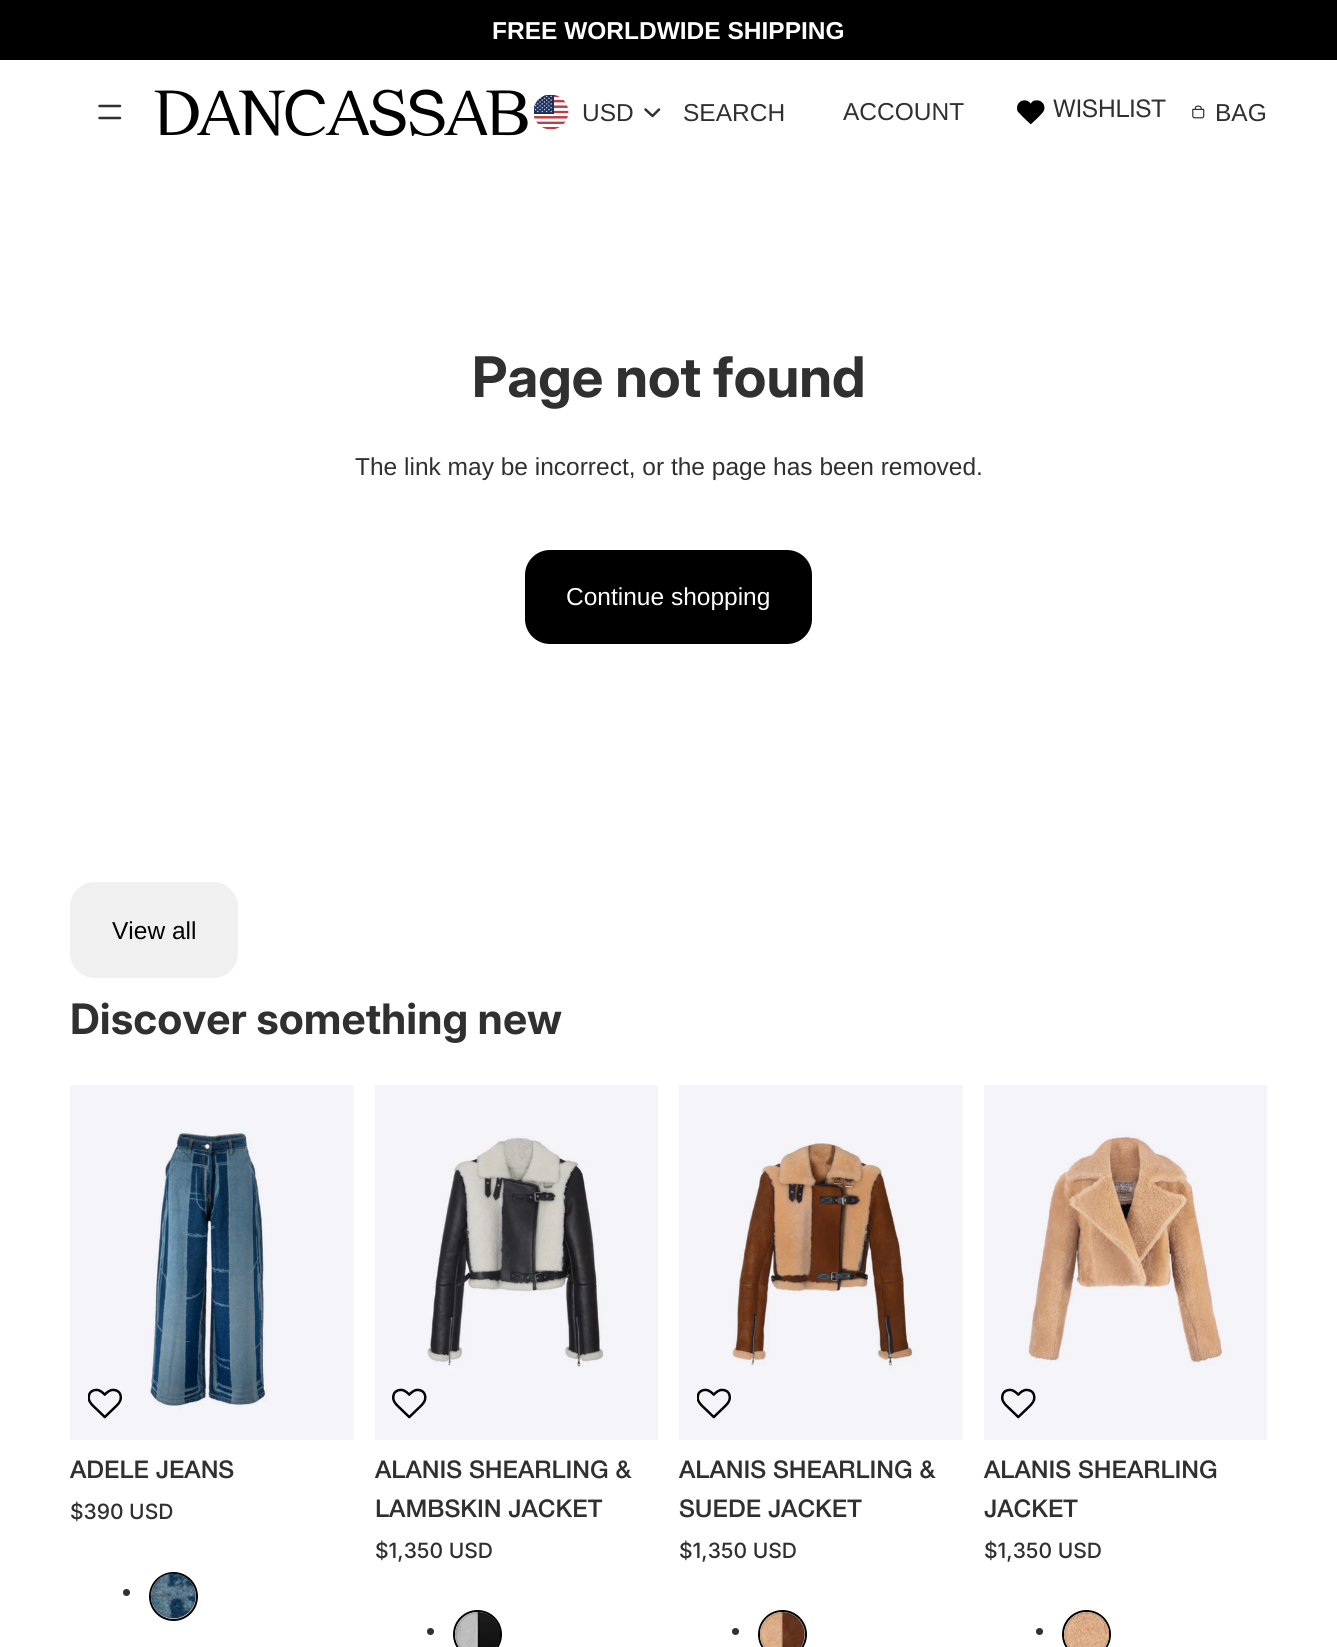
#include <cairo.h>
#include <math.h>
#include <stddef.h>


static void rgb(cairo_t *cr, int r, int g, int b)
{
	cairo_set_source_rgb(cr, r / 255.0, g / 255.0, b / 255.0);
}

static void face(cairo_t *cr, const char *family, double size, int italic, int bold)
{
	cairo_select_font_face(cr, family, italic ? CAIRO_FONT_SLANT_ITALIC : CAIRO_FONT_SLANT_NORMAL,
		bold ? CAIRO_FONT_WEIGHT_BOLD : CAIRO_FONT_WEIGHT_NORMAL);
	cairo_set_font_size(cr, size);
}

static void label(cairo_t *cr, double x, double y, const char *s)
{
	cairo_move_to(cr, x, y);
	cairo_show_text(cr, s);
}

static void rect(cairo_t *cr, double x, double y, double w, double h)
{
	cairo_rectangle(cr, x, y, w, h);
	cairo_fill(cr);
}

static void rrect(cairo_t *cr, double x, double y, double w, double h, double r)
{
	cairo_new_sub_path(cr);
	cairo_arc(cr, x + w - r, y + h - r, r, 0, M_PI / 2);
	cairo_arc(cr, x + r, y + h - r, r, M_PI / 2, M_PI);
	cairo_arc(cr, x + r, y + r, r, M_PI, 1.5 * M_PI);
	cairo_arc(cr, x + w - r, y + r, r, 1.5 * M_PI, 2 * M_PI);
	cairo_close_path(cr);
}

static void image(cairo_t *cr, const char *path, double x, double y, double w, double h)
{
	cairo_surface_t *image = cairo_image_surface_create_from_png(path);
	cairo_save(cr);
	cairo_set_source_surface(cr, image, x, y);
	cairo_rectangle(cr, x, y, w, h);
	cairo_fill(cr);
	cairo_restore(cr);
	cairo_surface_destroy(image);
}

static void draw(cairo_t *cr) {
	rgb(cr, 255, 255, 255);
	cairo_paint(cr);
	rgb(cr, 0, 0, 0);
	rect(cr, 0, 0, 1337, 60);
	face(cr, "Liberation Sans", 24.5, 0, 1);
	rgb(cr, 255, 255, 255);
	label(cr, 492, 39, "FREE WORLDWIDE SHIPPING");
	cairo_new_path(cr);
	cairo_move_to(cr, 99.5, 106);
	cairo_line_to(cr, 120, 106);
	cairo_move_to(cr, 99.5, 118);
	cairo_line_to(cr, 120, 118);
	rgb(cr, 48, 48, 48);
	cairo_set_line_width(cr, 2.5);
	cairo_set_line_cap(cr, CAIRO_LINE_CAP_ROUND);
	cairo_stroke(cr);
	image(cr, "image0.png", 154, 89, 374, 48);
	image(cr, "image1.png", 534, 95, 35, 35);
	face(cr, "Liberation Sans", 24.5, 0, 0);
	label(cr, 582, 121, "USD");
	cairo_new_path(cr);
	cairo_move_to(cr, 659, 109.5);
	cairo_line_to(cr, 652.5, 116);
	cairo_line_to(cr, 645.5, 109.5);
	cairo_set_line_join(cr, CAIRO_LINE_JOIN_ROUND);
	cairo_stroke(cr);
	label(cr, 683, 121, "SEARCH");
	label(cr, 843, 120, "ACCOUNT");
	image(cr, "image2.png", 1017, 100, 28, 25);
	face(cr, "Helvetica Neue", 24.5, 0, 0);
	label(cr, 1053, 117, "WISHLIST");
	image(cr, "image3.png", 1192, 105, 13, 14);
	face(cr, "Liberation Sans", 24.5, 0, 0);
	label(cr, 1215, 121, "BAG");
	face(cr, "Inter", 56, 0, 1);
	label(cr, 472, 397, "Page not found");
	face(cr, "Liberation Sans", 24.5, 0, 0);
	label(cr, 355, 475, "The link may be incorrect, or the page has been removed.");
	rgb(cr, 0, 0, 0);
	rrect(cr, 525, 550, 287, 94, 25);
	cairo_fill(cr);
	rgb(cr, 255, 255, 255);
	label(cr, 566, 605, "Continue shopping");
	rgb(cr, 240, 240, 240);
	rrect(cr, 70, 882, 168, 96, 25);
	cairo_fill(cr);
	rgb(cr, 0, 0, 0);
	label(cr, 112, 939, "View all");
	face(cr, "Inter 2", 42, 0, 1);
	rgb(cr, 48, 48, 48);
	label(cr, 70, 1034, "Discover something new");
	image(cr, "image4.png", 70, 1085, 284, 355);
	image(cr, "image5.png", 88, 1388, 34, 31);
	face(cr, "Helvetica Neue Medium", 24.5, 0, 0);
	label(cr, 70, 1478, "ADELE JEANS");
	face(cr, "Inter Medium", 21, 0, 0);
	label(cr, 70, 1519, "$390 USD");
	cairo_new_path(cr);
	cairo_arc(cr, 126.5, 1592.5, 3.5, 0, 2 * M_PI);
	cairo_fill(cr);
	cairo_arc(cr, 173.5, 1596.5, 23.5, 0, 2 * M_PI);
	rgb(cr, 0, 0, 0);
	cairo_set_line_width(cr, 2);
	cairo_set_line_cap(cr, CAIRO_LINE_CAP_BUTT);
	cairo_set_line_join(cr, CAIRO_LINE_JOIN_MITER);
	cairo_stroke(cr);
	image(cr, "image6.png", 150, 1573, 46, 46);
	rrect(cr, 152, 1574, 43, 44, 21.5);
	cairo_set_source_rgba(cr, 0, 0, 0, 0.1);
	cairo_stroke(cr);
	image(cr, "image7.png", 375, 1085, 283, 355);
	image(cr, "image8.png", 392, 1388, 35, 31);
	face(cr, "Helvetica Neue Medium", 24.5, 0, 0);
	rgb(cr, 48, 48, 48);
	label(cr, 375, 1478, "ALANIS SHEARLING &");
	label(cr, 375, 1517, "LAMBSKIN JACKET");
	face(cr, "Inter Medium", 21, 0, 0);
	label(cr, 375, 1558, "$1,350 USD");
	cairo_new_path(cr);
	cairo_arc(cr, 430.5, 1631.5, 3.5, 0, 2 * M_PI);
	cairo_fill(cr);
	cairo_arc(cr, 477.5, 1634.5, 23.5, 0, 2 * M_PI);
	rgb(cr, 0, 0, 0);
	cairo_stroke(cr);
	image(cr, "image9.png", 455, 1612, 45, 35);
	rrect(cr, 456, 1613, 44, 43, 21.5);
	cairo_set_source_rgba(cr, 0, 0, 0, 0.1);
	cairo_stroke(cr);
	image(cr, "image10.png", 679, 1085, 284, 355);
	image(cr, "image5.png", 697, 1388, 34, 31);
	face(cr, "Helvetica Neue Medium", 24.5, 0, 0);
	rgb(cr, 48, 48, 48);
	label(cr, 679, 1478, "ALANIS SHEARLING &");
	label(cr, 679, 1517, "SUEDE JACKET");
	face(cr, "Inter Medium", 21, 0, 0);
	label(cr, 679, 1558, "$1,350 USD");
	cairo_new_path(cr);
	cairo_arc(cr, 735.5, 1631.5, 3.5, 0, 2 * M_PI);
	cairo_fill(cr);
	cairo_arc(cr, 782.5, 1634.5, 23.5, 0, 2 * M_PI);
	rgb(cr, 0, 0, 0);
	cairo_stroke(cr);
	image(cr, "image11.png", 760, 1612, 45, 35);
	cairo_arc(cr, 782.5, 1634.5, 21.5, 0, 2 * M_PI);
	cairo_set_source_rgba(cr, 0, 0, 0, 0.1);
	cairo_stroke(cr);
	image(cr, "image12.png", 984, 1085, 283, 355);
	image(cr, "image8.png", 1001, 1388, 35, 31);
	face(cr, "Helvetica Neue Medium", 24.5, 0, 0);
	rgb(cr, 48, 48, 48);
	label(cr, 984, 1478, "ALANIS SHEARLING");
	label(cr, 984, 1517, "JACKET");
	face(cr, "Inter Medium", 21, 0, 0);
	label(cr, 984, 1558, "$1,350 USD");
	cairo_new_path(cr);
	cairo_arc(cr, 1039.5, 1631.5, 3.5, 0, 2 * M_PI);
	cairo_fill(cr);
	cairo_arc(cr, 1086.5, 1634.5, 23.5, 0, 2 * M_PI);
	rgb(cr, 0, 0, 0);
	cairo_stroke(cr);
	image(cr, "image13.png", 1064, 1612, 46, 35);
	rrect(cr, 1065, 1613, 44, 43, 21.5);
	cairo_set_source_rgba(cr, 0, 0, 0, 0.1);
	cairo_stroke(cr);
}

int main(void) {
	cairo_surface_t *surface = cairo_image_surface_create(CAIRO_FORMAT_RGB24, 1337, 1647);
	cairo_t *cr = cairo_create(surface);
	cairo_font_options_t *options = cairo_font_options_create();
	cairo_font_options_set_hint_metrics(options, CAIRO_HINT_METRICS_OFF);
	cairo_font_options_set_hint_style(options, CAIRO_HINT_STYLE_NONE);
	cairo_set_font_options(cr, options);
	cairo_set_miter_limit(cr, 4);
	draw(cr);
	cairo_surface_write_to_png(surface, "render.png");
	cairo_font_options_destroy(options);
	cairo_destroy(cr);
	cairo_surface_destroy(surface);
	return 0;
}
